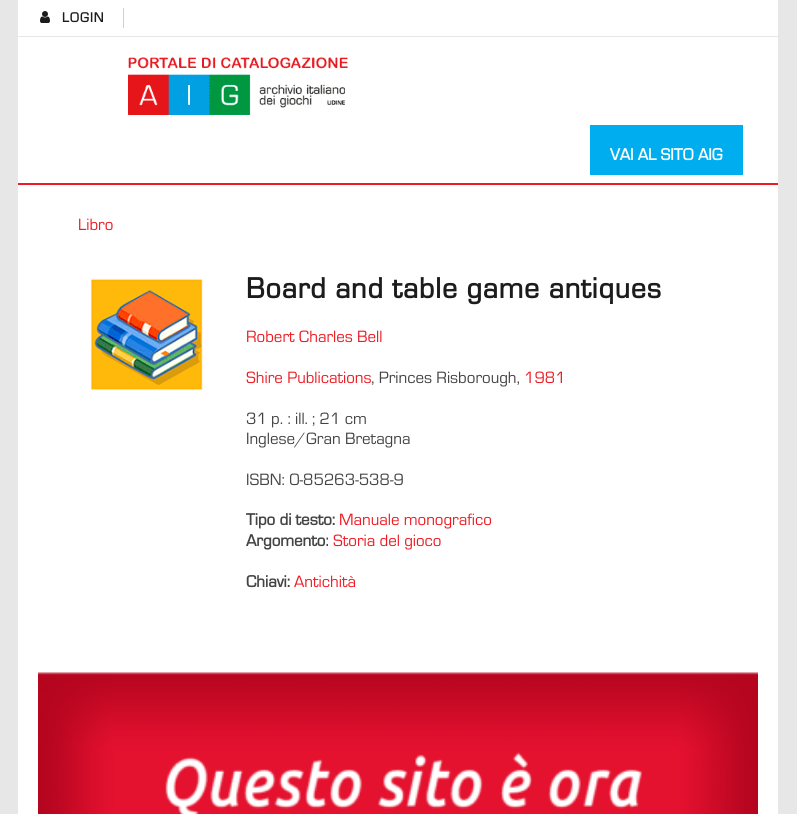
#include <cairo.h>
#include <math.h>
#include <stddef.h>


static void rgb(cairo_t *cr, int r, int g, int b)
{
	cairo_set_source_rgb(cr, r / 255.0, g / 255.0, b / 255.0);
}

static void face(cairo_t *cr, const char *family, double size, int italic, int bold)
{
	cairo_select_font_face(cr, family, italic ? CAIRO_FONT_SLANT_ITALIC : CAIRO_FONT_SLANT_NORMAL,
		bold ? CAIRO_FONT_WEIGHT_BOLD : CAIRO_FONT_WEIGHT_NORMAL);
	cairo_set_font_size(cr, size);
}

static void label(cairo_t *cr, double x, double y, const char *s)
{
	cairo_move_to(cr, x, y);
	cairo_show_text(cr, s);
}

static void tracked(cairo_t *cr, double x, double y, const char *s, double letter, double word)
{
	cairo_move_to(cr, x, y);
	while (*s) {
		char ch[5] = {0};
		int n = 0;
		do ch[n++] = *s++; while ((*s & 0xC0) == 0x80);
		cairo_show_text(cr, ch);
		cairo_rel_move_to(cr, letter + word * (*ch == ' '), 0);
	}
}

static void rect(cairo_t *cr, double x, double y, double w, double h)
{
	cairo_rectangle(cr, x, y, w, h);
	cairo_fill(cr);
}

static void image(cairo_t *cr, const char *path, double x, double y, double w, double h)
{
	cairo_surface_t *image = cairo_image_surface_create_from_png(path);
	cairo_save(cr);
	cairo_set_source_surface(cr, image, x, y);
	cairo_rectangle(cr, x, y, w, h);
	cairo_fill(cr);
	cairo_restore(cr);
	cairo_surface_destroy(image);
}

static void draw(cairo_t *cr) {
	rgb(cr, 231, 231, 231);
	cairo_paint(cr);
	rgb(cr, 255, 255, 255);
	rect(cr, 18, 0, 760, 814);
	rgb(cr, 231, 231, 231);
	rect(cr, 18, 36, 760, 1);
	image(cr, "image0.png", 40, 11, 10, 12);
	face(cr, "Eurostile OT", 14, 0, 1);
	rgb(cr, 28, 28, 28);
	tracked(cr, 62, 22, "LOGIN", 1, 0);
	rgb(cr, 208, 208, 208);
	rect(cr, 123, 8, 1, 20);
	image(cr, "image1.png", 128, 57, 220, 58);
	rgb(cr, 0, 174, 239);
	rect(cr, 590, 125, 153, 50);
	face(cr, "Eurostile OT", 17, 0, 1);
	rgb(cr, 255, 255, 255);
	label(cr, 610, 160, "VAI AL SITO AIG");
	rgb(cr, 237, 28, 36);
	rect(cr, 18, 183, 760, 2);
	face(cr, "Eurostile OT", 17, 0, 0);
	label(cr, 78, 230, "Libro");
	image(cr, "image2.png", 90, 278, 113, 113);
	face(cr, "Eurostile OT", 30, 0, 1);
	rgb(cr, 28, 28, 28);
	tracked(cr, 246, 298, "Board and table game antiques", 1, 0);
	face(cr, "Eurostile OT", 17, 0, 0);
	rgb(cr, 237, 28, 36);
	label(cr, 246, 342, "Robert Charles Bell");
	label(cr, 246, 383, "Shire Publications");
	rgb(cr, 68, 68, 68);
	label(cr, 371, 383, ", Princes Risborough,");
	rgb(cr, 237, 28, 36);
	label(cr, 524, 383, "1981");
	rgb(cr, 68, 68, 68);
	label(cr, 246, 424, "31 p. : ill. ; 21 cm");
	label(cr, 246, 444, "Inglese/Gran Bretagna");
	label(cr, 246, 485, "ISBN: 0-85263-538-9");
	face(cr, "Eurostile OT", 17, 0, 1);
	label(cr, 246, 525, "Tipo di testo:");
	face(cr, "Eurostile OT", 17, 0, 0);
	rgb(cr, 237, 28, 36);
	label(cr, 339, 525, "Manuale monografico");
	face(cr, "Eurostile OT", 17, 0, 1);
	rgb(cr, 68, 68, 68);
	label(cr, 246, 546, "Argomento:");
	face(cr, "Eurostile OT", 17, 0, 0);
	rgb(cr, 237, 28, 36);
	label(cr, 333, 546, "Storia del gioco");
	face(cr, "Eurostile OT", 17, 0, 1);
	rgb(cr, 68, 68, 68);
	label(cr, 246, 587, "Chiavi:");
	face(cr, "Eurostile OT", 17, 0, 0);
	rgb(cr, 237, 28, 36);
	label(cr, 294, 587, "Antichità");
	image(cr, "image3.png", 38, 672, 720, 142);
}

int main(void) {
	cairo_surface_t *surface = cairo_image_surface_create(CAIRO_FORMAT_RGB24, 797, 814);
	cairo_t *cr = cairo_create(surface);
	cairo_font_options_t *options = cairo_font_options_create();
	cairo_font_options_set_hint_metrics(options, CAIRO_HINT_METRICS_OFF);
	cairo_font_options_set_hint_style(options, CAIRO_HINT_STYLE_NONE);
	cairo_set_font_options(cr, options);
	cairo_set_miter_limit(cr, 4);
	draw(cr);
	cairo_surface_write_to_png(surface, "render.png");
	cairo_font_options_destroy(options);
	cairo_destroy(cr);
	cairo_surface_destroy(surface);
	return 0;
}
